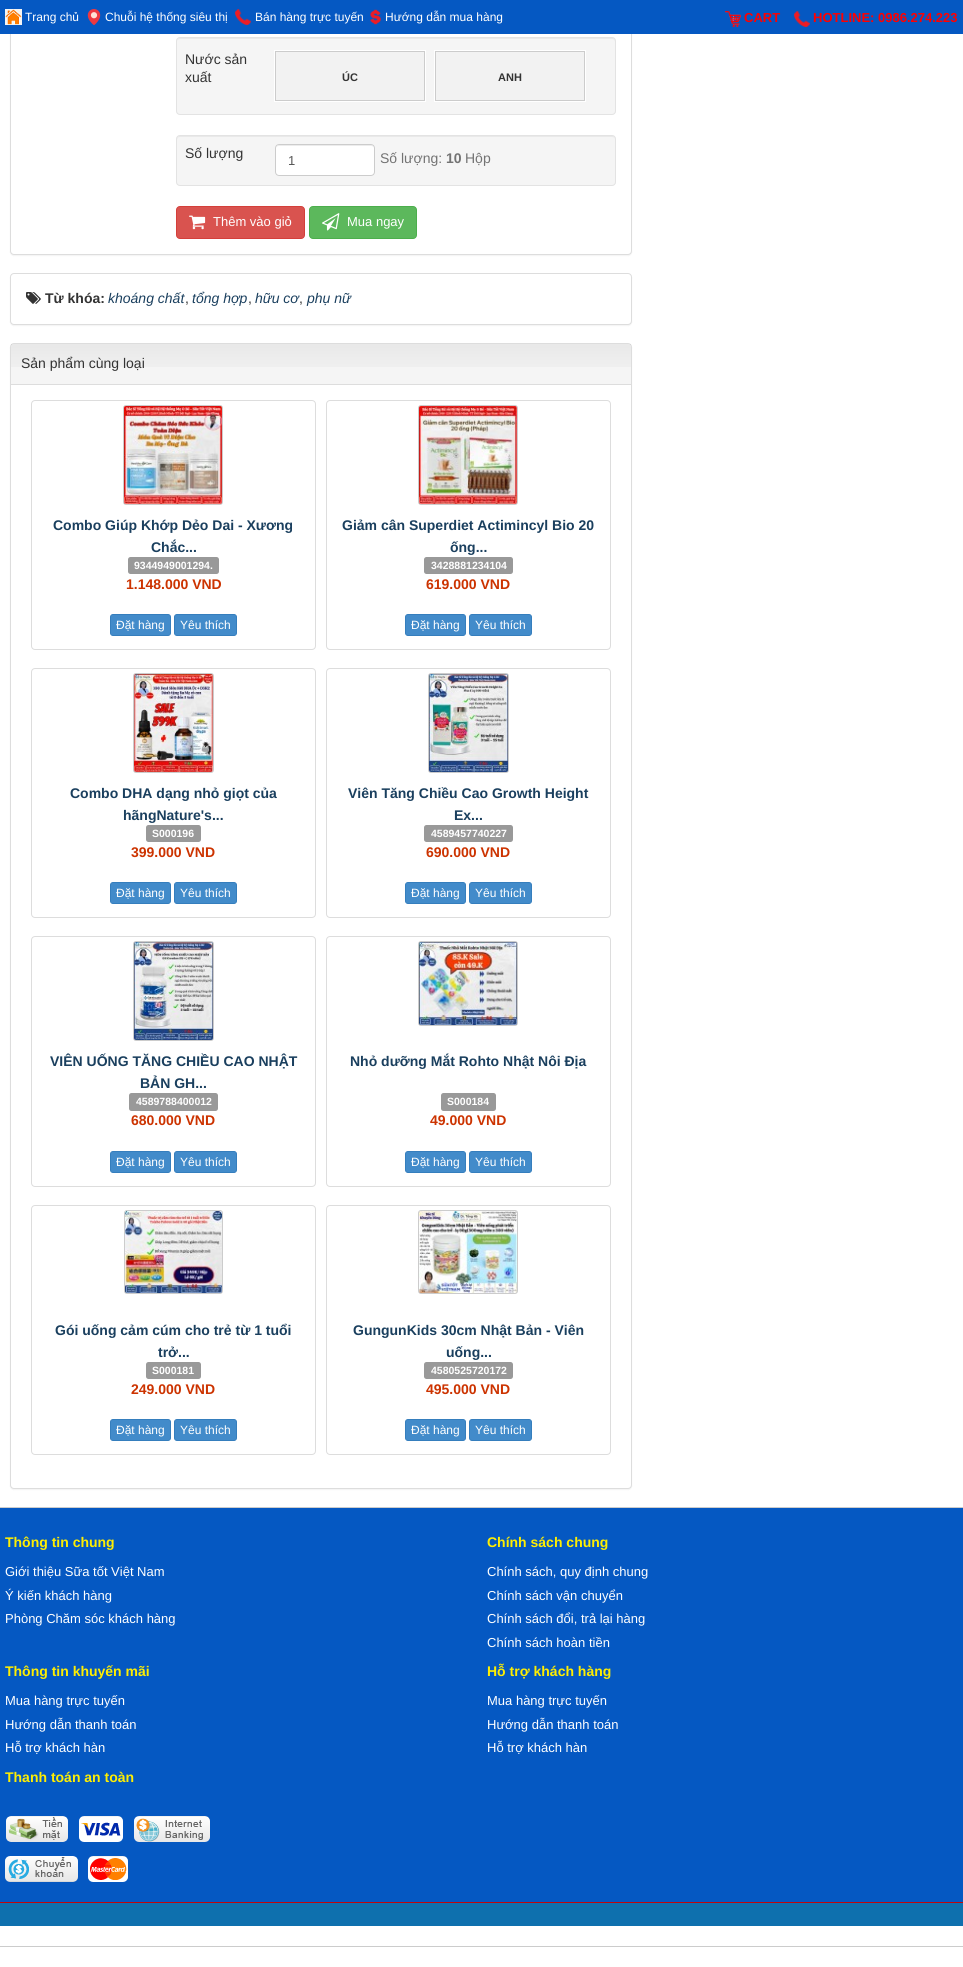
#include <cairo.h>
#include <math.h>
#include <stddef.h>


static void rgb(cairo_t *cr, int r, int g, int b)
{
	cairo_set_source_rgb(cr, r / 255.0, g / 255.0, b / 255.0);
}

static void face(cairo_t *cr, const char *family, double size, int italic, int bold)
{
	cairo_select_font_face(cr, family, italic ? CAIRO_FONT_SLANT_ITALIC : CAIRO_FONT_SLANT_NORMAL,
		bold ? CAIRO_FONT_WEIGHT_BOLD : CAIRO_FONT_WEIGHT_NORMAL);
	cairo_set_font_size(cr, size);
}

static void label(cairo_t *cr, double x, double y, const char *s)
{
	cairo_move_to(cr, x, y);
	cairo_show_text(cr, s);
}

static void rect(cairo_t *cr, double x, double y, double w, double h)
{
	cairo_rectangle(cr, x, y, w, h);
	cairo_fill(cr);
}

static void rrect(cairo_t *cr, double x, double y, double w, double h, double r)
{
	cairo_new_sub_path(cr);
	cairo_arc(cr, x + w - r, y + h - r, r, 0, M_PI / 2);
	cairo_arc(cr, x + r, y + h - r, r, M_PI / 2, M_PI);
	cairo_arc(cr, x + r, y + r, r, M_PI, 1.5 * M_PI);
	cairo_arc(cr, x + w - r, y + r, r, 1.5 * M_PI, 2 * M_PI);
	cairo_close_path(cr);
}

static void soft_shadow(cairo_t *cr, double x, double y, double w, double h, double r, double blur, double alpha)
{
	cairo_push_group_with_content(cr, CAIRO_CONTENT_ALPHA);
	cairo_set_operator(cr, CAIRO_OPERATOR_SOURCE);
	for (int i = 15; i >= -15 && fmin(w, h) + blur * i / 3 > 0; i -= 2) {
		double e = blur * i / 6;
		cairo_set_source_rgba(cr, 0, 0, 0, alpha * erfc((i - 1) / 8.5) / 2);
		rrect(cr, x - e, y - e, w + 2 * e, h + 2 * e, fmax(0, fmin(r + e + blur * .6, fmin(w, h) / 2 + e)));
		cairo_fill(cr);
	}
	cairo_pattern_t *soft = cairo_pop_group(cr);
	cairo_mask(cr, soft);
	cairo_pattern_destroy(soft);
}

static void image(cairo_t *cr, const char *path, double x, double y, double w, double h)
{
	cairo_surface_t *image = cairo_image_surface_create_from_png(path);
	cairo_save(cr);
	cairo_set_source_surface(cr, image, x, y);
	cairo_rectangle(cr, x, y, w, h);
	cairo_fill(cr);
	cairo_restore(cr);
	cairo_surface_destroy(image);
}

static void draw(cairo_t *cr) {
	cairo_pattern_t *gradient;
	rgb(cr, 255, 255, 255);
	cairo_paint(cr);
	rgb(cr, 0, 0, 0);
	soft_shadow(cr, 10, -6, 622, 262, 4, 0.5, 0.05);
	rgb(cr, 255, 255, 255);
	rrect(cr, 10.5, -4.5, 621, 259, 3.5);
	cairo_fill_preserve(cr);
	rgb(cr, 221, 221, 221);
	cairo_set_line_width(cr, 1);
	cairo_stroke(cr);
	rgb(cr, 5, 88, 194);
	rect(cr, 0, 0, 963, 34);
	image(cr, "image0.png", 5, 9, 17, 16);
	face(cr, "Liberation Sans", 12, 0, 0);
	rgb(cr, 255, 255, 255);
	label(cr, 25, 21, "Trang chủ");
	image(cr, "image1.png", 87, 9, 14, 16);
	label(cr, 105, 21, "Chuỗi hệ thống siêu thị");
	image(cr, "image2.png", 235, 9, 16, 16);
	label(cr, 255, 21, "Bán hàng trực tuyến");
	image(cr, "image3.png", 370, 9, 11, 16);
	label(cr, 385, 21, "Hướng dẫn mua hàng");
	image(cr, "image4.png", 725, 11, 16, 16);
	face(cr, "Liberation Sans", 13, 0, 1);
	rgb(cr, 255, 0, 0);
	label(cr, 744, 22, "CART");
	image(cr, "image2.png", 794, 11, 16, 16);
	label(cr, 813, 22, "HOTLINE: 0986.274.223");
	rgb(cr, 245, 245, 245);
	rrect(cr, 176, 37, 440, 78, 4);
	cairo_fill(cr);
	rgb(cr, 233, 233, 233);
	cairo_new_path(cr);
	cairo_move_to(cr, 180, 39);
	cairo_line_to(cr, 612, 39);
	cairo_curve_to(cr, 614, 39, 615, 40, 615, 42);
	cairo_line_to(cr, 615, 40);
	cairo_line_to(cr, 613, 38);
	cairo_line_to(cr, 180, 38);
	cairo_curve_to(cr, 178, 38, 177, 40, 177, 42);
	cairo_curve_to(cr, 177, 40, 178, 39, 180, 39);
	cairo_close_path(cr);
	cairo_fill(cr);
	rrect(cr, 176.5, 37.5, 439, 77, 3.5);
	rgb(cr, 227, 227, 227);
	cairo_stroke(cr);
	face(cr, "Liberation Sans", 14, 0, 0);
	rgb(cr, 51, 51, 51);
	label(cr, 185, 64, "Nước sản");
	label(cr, 185, 82, "xuất");
	rgb(cr, 242, 242, 242);
	cairo_rectangle(cr, 275.5, 51.5, 149, 49);
	cairo_fill_preserve(cr);
	rgb(cr, 204, 204, 204);
	cairo_stroke(cr);
	cairo_rectangle(cr, 274.5, 50.5, 151, 51);
	rgb(cr, 255, 255, 255);
	cairo_stroke(cr);
	face(cr, "Liberation Sans", 11, 0, 1);
	rgb(cr, 51, 51, 51);
	label(cr, 342, 81, "ÚC");
	rgb(cr, 242, 242, 242);
	cairo_rectangle(cr, 435.5, 51.5, 149, 49);
	cairo_fill_preserve(cr);
	rgb(cr, 204, 204, 204);
	cairo_stroke(cr);
	cairo_rectangle(cr, 434.5, 50.5, 151, 51);
	rgb(cr, 255, 255, 255);
	cairo_stroke(cr);
	rgb(cr, 51, 51, 51);
	label(cr, 498, 81, "ANH");
	rgb(cr, 245, 245, 245);
	rrect(cr, 176, 135, 440, 51, 4);
	cairo_fill(cr);
	rgb(cr, 233, 233, 233);
	cairo_new_path(cr);
	cairo_move_to(cr, 180, 137);
	cairo_line_to(cr, 612, 137);
	cairo_curve_to(cr, 614, 137, 615, 138, 615, 140);
	cairo_curve_to(cr, 615, 138, 614, 136, 612, 136);
	cairo_line_to(cr, 179, 136);
	cairo_line_to(cr, 177, 138);
	cairo_line_to(cr, 177, 140);
	cairo_curve_to(cr, 177, 138, 178, 137, 180, 137);
	cairo_close_path(cr);
	cairo_fill(cr);
	rrect(cr, 176.5, 135.5, 439, 50, 3.5);
	rgb(cr, 227, 227, 227);
	cairo_stroke(cr);
	face(cr, "Liberation Sans", 14, 0, 0);
	rgb(cr, 51, 51, 51);
	label(cr, 185, 158, "Số lượng");
	rgb(cr, 255, 255, 255);
	rrect(cr, 275, 144, 100, 32, 4);
	cairo_fill(cr);
	rgb(cr, 236, 236, 236);
	cairo_new_path(cr);
	cairo_move_to(cr, 279, 146);
	cairo_line_to(cr, 371, 146);
	cairo_curve_to(cr, 373, 146, 374, 147, 374, 149);
	cairo_curve_to(cr, 374, 141, 359, 145, 356, 145);
	cairo_line_to(cr, 294, 145);
	cairo_curve_to(cr, 291, 145, 276, 141, 276, 149);
	cairo_curve_to(cr, 276, 147, 277, 146, 279, 146);
	cairo_close_path(cr);
	cairo_fill(cr);
	rrect(cr, 275.5, 144.5, 99, 31, 3.5);
	rgb(cr, 204, 204, 204);
	cairo_stroke(cr);
	face(cr, "Liberation Sans", 13, 0, 0);
	rgb(cr, 85, 85, 85);
	label(cr, 288, 165, "1");
	face(cr, "Liberation Sans", 14, 0, 0);
	rgb(cr, 115, 115, 115);
	label(cr, 380, 163, "Số lượng:");
	face(cr, "Liberation Sans", 14, 0, 1);
	label(cr, 446, 163, "10");
	face(cr, "Liberation Sans", 14, 0, 0);
	label(cr, 465, 163, "Hộp");
	rgb(cr, 217, 83, 79);
	rrect(cr, 176.5, 206.5, 128, 32, 3.5);
	cairo_fill_preserve(cr);
	rgb(cr, 212, 63, 58);
	cairo_stroke(cr);
	image(cr, "image5.png", 189, 215, 17, 15);
	face(cr, "Liberation Sans", 13, 0, 0);
	rgb(cr, 255, 255, 255);
	label(cr, 213, 226, "Thêm vào giỏ");
	rgb(cr, 92, 184, 92);
	rrect(cr, 309.5, 206.5, 107, 32, 3.5);
	cairo_fill_preserve(cr);
	rgb(cr, 76, 174, 76);
	cairo_stroke(cr);
	image(cr, "image6.png", 322, 213, 18, 18);
	rgb(cr, 255, 255, 255);
	label(cr, 347, 226, "Mua ngay");
	rgb(cr, 0, 0, 0);
	soft_shadow(cr, 10, 274, 622, 52, 4, 0.5, 0.05);
	rgb(cr, 255, 255, 255);
	rrect(cr, 10.5, 273.5, 621, 51, 3.5);
	cairo_fill_preserve(cr);
	rgb(cr, 221, 221, 221);
	cairo_stroke(cr);
	image(cr, "image7.png", 26, 292, 15, 12);
	face(cr, "Liberation Sans", 14, 0, 1);
	rgb(cr, 51, 51, 51);
	label(cr, 45, 303, "Từ khóa:");
	face(cr, "Liberation Sans", 14, 1, 0);
	rgb(cr, 26, 63, 94);
	label(cr, 108, 303, "khoáng chất");
	face(cr, "Liberation Sans", 14, 0, 0);
	rgb(cr, 51, 51, 51);
	label(cr, 185, 303, ",");
	face(cr, "Liberation Sans", 14, 1, 0);
	rgb(cr, 26, 63, 94);
	label(cr, 192, 303, "tổng hợp");
	face(cr, "Liberation Sans", 14, 0, 0);
	rgb(cr, 51, 51, 51);
	label(cr, 248, 303, ",");
	face(cr, "Liberation Sans", 14, 1, 0);
	rgb(cr, 26, 63, 94);
	label(cr, 255, 303, "hữu cơ");
	label(cr, 307, 303, "phụ nữ");
	face(cr, "Liberation Sans", 14, 0, 0);
	rgb(cr, 51, 51, 51);
	label(cr, 299, 303, ",");
	rgb(cr, 0, 0, 0);
	soft_shadow(cr, 10, 344, 622, 1146, 4, 0.5, 0.05);
	rgb(cr, 255, 255, 255);
	rrect(cr, 10.5, 343.5, 621, 1145, 3.5);
	cairo_fill_preserve(cr);
	rgb(cr, 221, 221, 221);
	cairo_stroke(cr);
	rgb(cr, 245, 245, 245);
	cairo_new_path(cr);
	cairo_move_to(cr, 14, 344);
	cairo_line_to(cr, 628, 344);
	cairo_curve_to(cr, 629.5, 344, 631, 345.5, 631, 347);
	cairo_line_to(cr, 631, 385);
	cairo_line_to(cr, 11, 385);
	cairo_line_to(cr, 11, 347);
	cairo_curve_to(cr, 11, 345.5, 12.5, 344, 14, 344);
	cairo_close_path(cr);
	cairo_fill(cr);
	gradient = cairo_pattern_create_linear(321, 344, 321, 384);
	cairo_pattern_add_color_stop_rgba(gradient, 0, 0, 0, 0, 0.05);
	cairo_pattern_add_color_stop_rgba(gradient, 1, 0, 0, 0, 0);
	cairo_set_source(cr, gradient);
	cairo_pattern_destroy(gradient);
	rect(cr, 11, 344, 620, 23);
	rgb(cr, 221, 221, 221);
	rect(cr, 11, 384, 620, 1);
	rgb(cr, 51, 51, 51);
	label(cr, 21, 368, "Sản phẩm cùng loại");
	rrect(cr, 31.5, 400.5, 284, 249, 3.5);
	rgb(cr, 221, 221, 221);
	cairo_stroke(cr);
	rgb(cr, 204, 204, 204);
	rrect(cr, 123, 405, 100, 100, 3);
	cairo_fill(cr);
	image(cr, "image8.png", 124, 406, 98, 98);
	face(cr, "Liberation Sans", 14, 0, 1);
	rgb(cr, 26, 63, 94);
	label(cr, 53, 530, "Combo Giúp Khớp Dẻo Dai - Xương");
	label(cr, 151, 552, "Chắc...");
	rgb(cr, 153, 153, 153);
	rrect(cr, 128, 557, 91, 17, 2.5);
	cairo_fill(cr);
	face(cr, "Liberation Sans", 10.5, 0, 1);
	rgb(cr, 255, 255, 255);
	label(cr, 134, 569, "9344949001294.");
	face(cr, "Liberation Sans", 14, 0, 1);
	rgb(cr, 204, 51, 0);
	label(cr, 126, 589, "1.148.000 VND");
	rgb(cr, 66, 139, 202);
	rrect(cr, 110.5, 614.5, 60, 21, 2.5);
	cairo_fill_preserve(cr);
	rgb(cr, 53, 126, 189);
	cairo_stroke(cr);
	face(cr, "Liberation Sans", 12, 0, 0);
	rgb(cr, 255, 255, 255);
	label(cr, 116, 629, "Đặt hàng");
	rgb(cr, 66, 139, 202);
	rrect(cr, 174.5, 614.5, 62, 21, 2.5);
	cairo_fill_preserve(cr);
	rgb(cr, 53, 126, 189);
	cairo_stroke(cr);
	rgb(cr, 255, 255, 255);
	label(cr, 180, 629, "Yêu thích");
	rrect(cr, 326.5, 400.5, 284, 249, 3.5);
	rgb(cr, 221, 221, 221);
	cairo_stroke(cr);
	rgb(cr, 204, 204, 204);
	rrect(cr, 418, 405, 100, 100, 3);
	cairo_fill(cr);
	image(cr, "image9.png", 419, 406, 98, 98);
	face(cr, "Liberation Sans", 14, 0, 1);
	rgb(cr, 26, 63, 94);
	label(cr, 342, 530, "Giảm cân Superdiet Actimincyl Bio 20");
	label(cr, 450, 552, "ống...");
	rgb(cr, 153, 153, 153);
	rrect(cr, 424, 557, 89, 17, 2.5);
	cairo_fill(cr);
	face(cr, "Liberation Sans", 10.5, 0, 1);
	rgb(cr, 255, 255, 255);
	label(cr, 431, 569, "3428881234104");
	face(cr, "Liberation Sans", 14, 0, 1);
	rgb(cr, 204, 51, 0);
	label(cr, 426, 589, "619.000 VND");
	rgb(cr, 66, 139, 202);
	rrect(cr, 405.5, 614.5, 60, 21, 2.5);
	cairo_fill_preserve(cr);
	rgb(cr, 53, 126, 189);
	cairo_stroke(cr);
	face(cr, "Liberation Sans", 12, 0, 0);
	rgb(cr, 255, 255, 255);
	label(cr, 411, 629, "Đặt hàng");
	rgb(cr, 66, 139, 202);
	rrect(cr, 469.5, 614.5, 62, 21, 2.5);
	cairo_fill_preserve(cr);
	rgb(cr, 53, 126, 189);
	cairo_stroke(cr);
	rgb(cr, 255, 255, 255);
	label(cr, 475, 629, "Yêu thích");
	rrect(cr, 31.5, 668.5, 284, 249, 3.5);
	rgb(cr, 221, 221, 221);
	cairo_stroke(cr);
	rgb(cr, 204, 204, 204);
	rrect(cr, 133, 673, 81, 100, 3);
	cairo_fill(cr);
	image(cr, "image10.png", 134, 674, 79, 98);
	face(cr, "Liberation Sans", 14, 0, 1);
	rgb(cr, 26, 63, 94);
	label(cr, 70, 798, "Combo DHA dạng nhỏ giọt của");
	label(cr, 123, 820, "hãngNature's...");
	rgb(cr, 153, 153, 153);
	rrect(cr, 146, 825, 55, 17, 2.5);
	cairo_fill(cr);
	face(cr, "Liberation Sans", 10.5, 0, 1);
	rgb(cr, 255, 255, 255);
	label(cr, 152, 837, "S000196");
	face(cr, "Liberation Sans", 14, 0, 1);
	rgb(cr, 204, 51, 0);
	label(cr, 131, 857, "399.000 VND");
	rgb(cr, 66, 139, 202);
	rrect(cr, 110.5, 882.5, 60, 21, 2.5);
	cairo_fill_preserve(cr);
	rgb(cr, 53, 126, 189);
	cairo_stroke(cr);
	face(cr, "Liberation Sans", 12, 0, 0);
	rgb(cr, 255, 255, 255);
	label(cr, 116, 897, "Đặt hàng");
	rgb(cr, 66, 139, 202);
	rrect(cr, 174.5, 882.5, 62, 21, 2.5);
	cairo_fill_preserve(cr);
	rgb(cr, 53, 126, 189);
	cairo_stroke(cr);
	rgb(cr, 255, 255, 255);
	label(cr, 180, 897, "Yêu thích");
	rrect(cr, 326.5, 668.5, 284, 249, 3.5);
	rgb(cr, 221, 221, 221);
	cairo_stroke(cr);
	rgb(cr, 204, 204, 204);
	rrect(cr, 428, 673, 81, 100, 3);
	cairo_fill(cr);
	image(cr, "image11.png", 429, 674, 79, 98);
	face(cr, "Liberation Sans", 14, 0, 1);
	rgb(cr, 26, 63, 94);
	label(cr, 348, 798, "Viên Tăng Chiều Cao Growth Height");
	label(cr, 454, 820, "Ex...");
	rgb(cr, 153, 153, 153);
	rrect(cr, 424, 825, 89, 17, 2.5);
	cairo_fill(cr);
	face(cr, "Liberation Sans", 10.5, 0, 1);
	rgb(cr, 255, 255, 255);
	label(cr, 431, 837, "4589457740227");
	face(cr, "Liberation Sans", 14, 0, 1);
	rgb(cr, 204, 51, 0);
	label(cr, 426, 857, "690.000 VND");
	rgb(cr, 66, 139, 202);
	rrect(cr, 405.5, 882.5, 60, 21, 2.5);
	cairo_fill_preserve(cr);
	rgb(cr, 53, 126, 189);
	cairo_stroke(cr);
	face(cr, "Liberation Sans", 12, 0, 0);
	rgb(cr, 255, 255, 255);
	label(cr, 411, 897, "Đặt hàng");
	rgb(cr, 66, 139, 202);
	rrect(cr, 469.5, 882.5, 62, 21, 2.5);
	cairo_fill_preserve(cr);
	rgb(cr, 53, 126, 189);
	cairo_stroke(cr);
	rgb(cr, 255, 255, 255);
	label(cr, 475, 897, "Yêu thích");
	rrect(cr, 31.5, 936.5, 284, 250, 3.5);
	rgb(cr, 221, 221, 221);
	cairo_stroke(cr);
	rgb(cr, 204, 204, 204);
	rrect(cr, 133, 941, 81, 100, 3);
	cairo_fill(cr);
	image(cr, "image12.png", 134, 942, 79, 98);
	face(cr, "Liberation Sans", 14, 0, 1);
	rgb(cr, 26, 63, 94);
	label(cr, 50, 1066, "VIÊN UỐNG TĂNG CHIỀU CAO NHẬT");
	label(cr, 140, 1088, "BẢN GH...");
	rgb(cr, 153, 153, 153);
	rrect(cr, 129, 1093, 89, 18, 2.5);
	cairo_fill(cr);
	face(cr, "Liberation Sans", 10.5, 0, 1);
	rgb(cr, 255, 255, 255);
	label(cr, 136, 1105, "4589788400012");
	face(cr, "Liberation Sans", 14, 0, 1);
	rgb(cr, 204, 51, 0);
	label(cr, 131, 1125, "680.000 VND");
	rgb(cr, 66, 139, 202);
	rrect(cr, 110.5, 1151.5, 60, 21, 2.5);
	cairo_fill_preserve(cr);
	rgb(cr, 53, 126, 189);
	cairo_stroke(cr);
	face(cr, "Liberation Sans", 12, 0, 0);
	rgb(cr, 255, 255, 255);
	label(cr, 116, 1166, "Đặt hàng");
	rgb(cr, 66, 139, 202);
	rrect(cr, 174.5, 1151.5, 62, 21, 2.5);
	cairo_fill_preserve(cr);
	rgb(cr, 53, 126, 189);
	cairo_stroke(cr);
	rgb(cr, 255, 255, 255);
	label(cr, 180, 1166, "Yêu thích");
	rrect(cr, 326.5, 936.5, 284, 250, 3.5);
	rgb(cr, 221, 221, 221);
	cairo_stroke(cr);
	rgb(cr, 204, 204, 204);
	rrect(cr, 418, 941, 100, 85, 3);
	cairo_fill(cr);
	image(cr, "image13.png", 419, 942, 98, 83);
	face(cr, "Liberation Sans", 14, 0, 1);
	rgb(cr, 26, 63, 94);
	label(cr, 350, 1066, "Nhỏ dưỡng Mắt Rohto Nhật Nôi Địa");
	rgb(cr, 153, 153, 153);
	rrect(cr, 441, 1093, 55, 18, 2.5);
	cairo_fill(cr);
	face(cr, "Liberation Sans", 10.5, 0, 1);
	rgb(cr, 255, 255, 255);
	label(cr, 447, 1105, "S000184");
	face(cr, "Liberation Sans", 14, 0, 1);
	rgb(cr, 204, 51, 0);
	label(cr, 430, 1125, "49.000 VND");
	rgb(cr, 66, 139, 202);
	rrect(cr, 405.5, 1151.5, 60, 21, 2.5);
	cairo_fill_preserve(cr);
	rgb(cr, 53, 126, 189);
	cairo_stroke(cr);
	face(cr, "Liberation Sans", 12, 0, 0);
	rgb(cr, 255, 255, 255);
	label(cr, 411, 1166, "Đặt hàng");
	rgb(cr, 66, 139, 202);
	rrect(cr, 469.5, 1151.5, 62, 21, 2.5);
	cairo_fill_preserve(cr);
	rgb(cr, 53, 126, 189);
	cairo_stroke(cr);
	rgb(cr, 255, 255, 255);
	label(cr, 475, 1166, "Yêu thích");
	rrect(cr, 31.5, 1205.5, 284, 249, 3.5);
	rgb(cr, 221, 221, 221);
	cairo_stroke(cr);
	rgb(cr, 204, 204, 204);
	rrect(cr, 124, 1210, 99, 84, 3);
	cairo_fill(cr);
	image(cr, "image14.png", 125, 1211, 97, 82);
	face(cr, "Liberation Sans", 14, 0, 1);
	rgb(cr, 26, 63, 94);
	label(cr, 55, 1335, "Gói uống cảm cúm cho trẻ từ 1 tuổi");
	label(cr, 158, 1357, "trở...");
	rgb(cr, 153, 153, 153);
	rrect(cr, 146, 1362, 55, 17, 2.5);
	cairo_fill(cr);
	face(cr, "Liberation Sans", 10.5, 0, 1);
	rgb(cr, 255, 255, 255);
	label(cr, 152, 1374, "S000181");
	face(cr, "Liberation Sans", 14, 0, 1);
	rgb(cr, 204, 51, 0);
	label(cr, 131, 1394, "249.000 VND");
	rgb(cr, 66, 139, 202);
	rrect(cr, 110.5, 1419.5, 60, 21, 2.5);
	cairo_fill_preserve(cr);
	rgb(cr, 53, 126, 189);
	cairo_stroke(cr);
	face(cr, "Liberation Sans", 12, 0, 0);
	rgb(cr, 255, 255, 255);
	label(cr, 116, 1434, "Đặt hàng");
	rgb(cr, 66, 139, 202);
	rrect(cr, 174.5, 1419.5, 62, 21, 2.5);
	cairo_fill_preserve(cr);
	rgb(cr, 53, 126, 189);
	cairo_stroke(cr);
	rgb(cr, 255, 255, 255);
	label(cr, 180, 1434, "Yêu thích");
	rrect(cr, 326.5, 1205.5, 284, 249, 3.5);
	rgb(cr, 221, 221, 221);
	cairo_stroke(cr);
	rgb(cr, 204, 204, 204);
	rrect(cr, 418, 1210, 100, 84, 3);
	cairo_fill(cr);
	image(cr, "image15.png", 419, 1211, 98, 82);
	face(cr, "Liberation Sans", 14, 0, 1);
	rgb(cr, 26, 63, 94);
	label(cr, 353, 1335, "GungunKids 30cm Nhật Bản - Viên");
	label(cr, 446, 1357, "uống...");
	rgb(cr, 153, 153, 153);
	rrect(cr, 424, 1362, 89, 17, 2.5);
	cairo_fill(cr);
	face(cr, "Liberation Sans", 10.5, 0, 1);
	rgb(cr, 255, 255, 255);
	label(cr, 431, 1374, "4580525720172");
	face(cr, "Liberation Sans", 14, 0, 1);
	rgb(cr, 204, 51, 0);
	label(cr, 426, 1394, "495.000 VND");
	rgb(cr, 66, 139, 202);
	rrect(cr, 405.5, 1419.5, 60, 21, 2.5);
	cairo_fill_preserve(cr);
	rgb(cr, 53, 126, 189);
	cairo_stroke(cr);
	face(cr, "Liberation Sans", 12, 0, 0);
	rgb(cr, 255, 255, 255);
	label(cr, 411, 1434, "Đặt hàng");
	rgb(cr, 66, 139, 202);
	rrect(cr, 469.5, 1419.5, 62, 21, 2.5);
	cairo_fill_preserve(cr);
	rgb(cr, 53, 126, 189);
	cairo_stroke(cr);
	rgb(cr, 255, 255, 255);
	label(cr, 475, 1434, "Yêu thích");
	rgb(cr, 5, 88, 194);
	rect(cr, 0, 1508, 963, 394);
	rgb(cr, 204, 204, 204);
	rect(cr, 0, 1507, 963, 1);
	rgb(cr, 194, 5, 11);
	rect(cr, 0, 1902, 963, 1);
	face(cr, "Liberation Sans", 14, 0, 1);
	rgb(cr, 254, 238, 2);
	label(cr, 5, 1547, "Thông tin chung");
	face(cr, "Liberation Sans", 13, 0, 0);
	rgb(cr, 255, 255, 255);
	label(cr, 5, 1576, "Giới thiệu Sữa tốt Việt Nam");
	label(cr, 5, 1600, "Ý kiến khách hàng");
	label(cr, 5, 1623, "Phòng Chăm sóc khách hàng");
	face(cr, "Liberation Sans", 14, 0, 1);
	rgb(cr, 254, 238, 2);
	label(cr, 487, 1547, "Chính sách chung");
	face(cr, "Liberation Sans", 13, 0, 0);
	rgb(cr, 255, 255, 255);
	label(cr, 487, 1576, "Chính sách, quy định chung");
	label(cr, 487, 1600, "Chính sách vận chuyển");
	label(cr, 487, 1623, "Chính sách đổi, trả lại hàng");
	label(cr, 487, 1647, "Chính sách hoàn tiền");
	face(cr, "Liberation Sans", 14, 0, 1);
	rgb(cr, 254, 238, 2);
	label(cr, 5, 1676, "Thông tin khuyến mãi");
	face(cr, "Liberation Sans", 13, 0, 0);
	rgb(cr, 255, 255, 255);
	label(cr, 5, 1705, "Mua hàng trực tuyến");
	label(cr, 5, 1729, "Hướng dẫn thanh toán");
	label(cr, 5, 1752, "Hỗ trợ khách hàn");
	face(cr, "Liberation Sans", 14, 0, 1);
	rgb(cr, 254, 238, 2);
	label(cr, 487, 1676, "Hỗ trợ khách hàng");
	face(cr, "Liberation Sans", 13, 0, 0);
	rgb(cr, 255, 255, 255);
	label(cr, 487, 1705, "Mua hàng trực tuyến");
	label(cr, 487, 1729, "Hướng dẫn thanh toán");
	label(cr, 487, 1752, "Hỗ trợ khách hàn");
	face(cr, "Liberation Sans", 14, 0, 1);
	rgb(cr, 254, 238, 2);
	label(cr, 5, 1782, "Thanh toán an toàn");
	image(cr, "image16.png", 5, 1816, 205, 66);
	rgb(cr, 14, 112, 174);
	rect(cr, 0, 1903, 963, 23);
	rgb(cr, 204, 204, 204);
	rect(cr, 0, 1946, 963, 1);
}

int main(void) {
	cairo_surface_t *surface = cairo_image_surface_create(CAIRO_FORMAT_RGB24, 963, 1967);
	cairo_t *cr = cairo_create(surface);
	cairo_font_options_t *options = cairo_font_options_create();
	cairo_font_options_set_hint_metrics(options, CAIRO_HINT_METRICS_OFF);
	cairo_font_options_set_hint_style(options, CAIRO_HINT_STYLE_NONE);
	cairo_set_font_options(cr, options);
	cairo_set_miter_limit(cr, 4);
	draw(cr);
	cairo_surface_write_to_png(surface, "render.png");
	cairo_font_options_destroy(options);
	cairo_destroy(cr);
	cairo_surface_destroy(surface);
	return 0;
}
